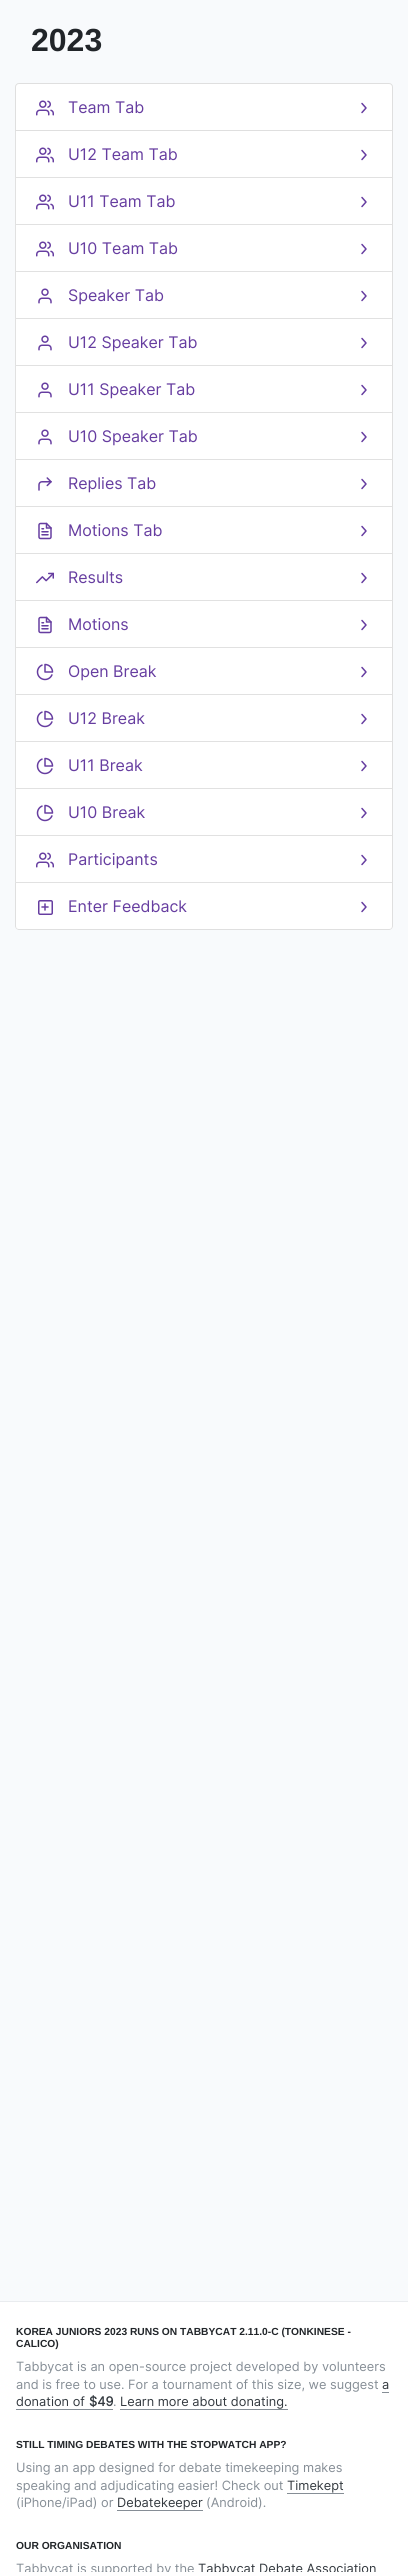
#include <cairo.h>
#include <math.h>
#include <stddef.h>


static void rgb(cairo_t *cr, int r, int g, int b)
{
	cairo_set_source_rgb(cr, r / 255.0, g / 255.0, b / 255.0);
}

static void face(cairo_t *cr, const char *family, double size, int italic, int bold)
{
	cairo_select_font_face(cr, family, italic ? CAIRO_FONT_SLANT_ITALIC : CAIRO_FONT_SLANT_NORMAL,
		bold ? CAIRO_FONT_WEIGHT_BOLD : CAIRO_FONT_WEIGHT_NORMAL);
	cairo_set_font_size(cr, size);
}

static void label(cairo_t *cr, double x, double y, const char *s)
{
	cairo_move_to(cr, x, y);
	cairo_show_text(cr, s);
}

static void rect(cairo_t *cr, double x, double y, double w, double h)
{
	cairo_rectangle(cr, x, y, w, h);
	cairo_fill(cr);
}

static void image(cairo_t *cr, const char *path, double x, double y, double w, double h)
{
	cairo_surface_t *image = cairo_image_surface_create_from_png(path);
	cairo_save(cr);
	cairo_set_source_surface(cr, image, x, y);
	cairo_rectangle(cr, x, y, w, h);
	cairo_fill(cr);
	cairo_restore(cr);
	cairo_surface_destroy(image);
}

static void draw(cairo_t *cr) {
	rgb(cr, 248, 250, 252);
	cairo_paint(cr);
	face(cr, "Liberation Sans", 32, 0, 1);
	rgb(cr, 33, 37, 41);
	label(cr, 31, 51, "2023");
	rgb(cr, 255, 255, 255);
	cairo_new_path(cr);
	cairo_move_to(cr, 19, 83.5);
	cairo_line_to(cr, 389, 83.5);
	cairo_curve_to(cr, 391, 83.5, 392.5, 85, 392.5, 87);
	cairo_line_to(cr, 392.5, 130.5);
	cairo_line_to(cr, 15.5, 130.5);
	cairo_line_to(cr, 15.5, 87);
	cairo_curve_to(cr, 15.5, 85, 17, 83.5, 19, 83.5);
	cairo_close_path(cr);
	cairo_fill_preserve(cr);
	rgb(cr, 223, 223, 223);
	cairo_set_line_width(cr, 1);
	cairo_stroke(cr);
	image(cr, "image0.png", 36, 100, 18, 16);
	face(cr, "Inter", 16, 0, 0);
	rgb(cr, 102, 61, 160);
	label(cr, 68, 113, "Team Tab");
	cairo_new_path(cr);
	cairo_move_to(cr, 362, 112.5);
	cairo_line_to(cr, 366, 108);
	cairo_line_to(cr, 362, 103.5);
	cairo_set_line_width(cr, 1.5);
	cairo_set_line_cap(cr, CAIRO_LINE_CAP_ROUND);
	cairo_set_line_join(cr, CAIRO_LINE_JOIN_ROUND);
	cairo_stroke(cr);
	rgb(cr, 255, 255, 255);
	rect(cr, 15, 131, 378, 752);
	rgb(cr, 223, 223, 223);
	cairo_new_path(cr);
	cairo_move_to(cr, 393, 131);
	cairo_line_to(cr, 393, 178);
	cairo_line_to(cr, 392, 177);
	cairo_line_to(cr, 392, 131);
	cairo_close_path(cr);
	cairo_fill(cr);
	cairo_set_source_rgba(cr, 0, 0, 0, 0.12);
	cairo_new_path(cr);
	cairo_move_to(cr, 393, 178);
	cairo_line_to(cr, 15, 178);
	cairo_line_to(cr, 16, 177);
	cairo_line_to(cr, 392, 177);
	cairo_close_path(cr);
	cairo_fill(cr);
	cairo_new_path(cr);
	cairo_move_to(cr, 15, 178);
	cairo_line_to(cr, 15, 131);
	cairo_line_to(cr, 16, 131);
	cairo_line_to(cr, 16, 177);
	cairo_close_path(cr);
	cairo_fill(cr);
	image(cr, "image0.png", 36, 147, 18, 16);
	rgb(cr, 102, 61, 160);
	label(cr, 68, 160, "U12 Team Tab");
	cairo_new_path(cr);
	cairo_move_to(cr, 362, 159.5);
	cairo_line_to(cr, 366, 155);
	cairo_line_to(cr, 362, 150.5);
	cairo_stroke(cr);
	rgb(cr, 223, 223, 223);
	cairo_new_path(cr);
	cairo_move_to(cr, 393, 178);
	cairo_line_to(cr, 393, 225);
	cairo_line_to(cr, 392, 224);
	cairo_line_to(cr, 392, 178);
	cairo_close_path(cr);
	cairo_fill(cr);
	cairo_set_source_rgba(cr, 0, 0, 0, 0.12);
	cairo_new_path(cr);
	cairo_move_to(cr, 393, 225);
	cairo_line_to(cr, 15, 225);
	cairo_line_to(cr, 16, 224);
	cairo_line_to(cr, 392, 224);
	cairo_close_path(cr);
	cairo_fill(cr);
	cairo_new_path(cr);
	cairo_move_to(cr, 15, 225);
	cairo_line_to(cr, 15, 178);
	cairo_line_to(cr, 16, 178);
	cairo_line_to(cr, 16, 224);
	cairo_close_path(cr);
	cairo_fill(cr);
	image(cr, "image0.png", 36, 194, 18, 16);
	rgb(cr, 102, 61, 160);
	label(cr, 68, 207, "U11 Team Tab");
	cairo_new_path(cr);
	cairo_move_to(cr, 362, 206.5);
	cairo_line_to(cr, 366, 202);
	cairo_line_to(cr, 362, 197.5);
	cairo_stroke(cr);
	rgb(cr, 223, 223, 223);
	cairo_new_path(cr);
	cairo_move_to(cr, 393, 225);
	cairo_line_to(cr, 393, 272);
	cairo_line_to(cr, 392, 271);
	cairo_line_to(cr, 392, 225);
	cairo_close_path(cr);
	cairo_fill(cr);
	cairo_set_source_rgba(cr, 0, 0, 0, 0.12);
	cairo_new_path(cr);
	cairo_move_to(cr, 393, 272);
	cairo_line_to(cr, 15, 272);
	cairo_line_to(cr, 16, 271);
	cairo_line_to(cr, 392, 271);
	cairo_close_path(cr);
	cairo_fill(cr);
	cairo_new_path(cr);
	cairo_move_to(cr, 15, 272);
	cairo_line_to(cr, 15, 225);
	cairo_line_to(cr, 16, 225);
	cairo_line_to(cr, 16, 271);
	cairo_close_path(cr);
	cairo_fill(cr);
	image(cr, "image0.png", 36, 241, 18, 16);
	rgb(cr, 102, 61, 160);
	label(cr, 68, 254, "U10 Team Tab");
	cairo_new_path(cr);
	cairo_move_to(cr, 362, 253.5);
	cairo_line_to(cr, 366, 249);
	cairo_line_to(cr, 362, 244.5);
	cairo_stroke(cr);
	rgb(cr, 223, 223, 223);
	cairo_new_path(cr);
	cairo_move_to(cr, 393, 272);
	cairo_line_to(cr, 393, 319);
	cairo_line_to(cr, 392, 318);
	cairo_line_to(cr, 392, 272);
	cairo_close_path(cr);
	cairo_fill(cr);
	cairo_set_source_rgba(cr, 0, 0, 0, 0.12);
	cairo_new_path(cr);
	cairo_move_to(cr, 393, 319);
	cairo_line_to(cr, 15, 319);
	cairo_line_to(cr, 16, 318);
	cairo_line_to(cr, 392, 318);
	cairo_close_path(cr);
	cairo_fill(cr);
	cairo_new_path(cr);
	cairo_move_to(cr, 15, 319);
	cairo_line_to(cr, 15, 272);
	cairo_line_to(cr, 16, 272);
	cairo_line_to(cr, 16, 318);
	cairo_close_path(cr);
	cairo_fill(cr);
	image(cr, "image1.png", 38, 288, 14, 16);
	rgb(cr, 102, 61, 160);
	label(cr, 68, 301, "Speaker Tab");
	cairo_new_path(cr);
	cairo_move_to(cr, 362, 300.5);
	cairo_line_to(cr, 366, 296);
	cairo_line_to(cr, 362, 291.5);
	cairo_stroke(cr);
	rgb(cr, 223, 223, 223);
	cairo_new_path(cr);
	cairo_move_to(cr, 393, 319);
	cairo_line_to(cr, 393, 366);
	cairo_line_to(cr, 392, 365);
	cairo_line_to(cr, 392, 319);
	cairo_close_path(cr);
	cairo_fill(cr);
	cairo_set_source_rgba(cr, 0, 0, 0, 0.12);
	cairo_new_path(cr);
	cairo_move_to(cr, 393, 366);
	cairo_line_to(cr, 15, 366);
	cairo_line_to(cr, 16, 365);
	cairo_line_to(cr, 392, 365);
	cairo_close_path(cr);
	cairo_fill(cr);
	cairo_new_path(cr);
	cairo_move_to(cr, 15, 366);
	cairo_line_to(cr, 15, 319);
	cairo_line_to(cr, 16, 319);
	cairo_line_to(cr, 16, 365);
	cairo_close_path(cr);
	cairo_fill(cr);
	image(cr, "image1.png", 38, 335, 14, 16);
	rgb(cr, 102, 61, 160);
	label(cr, 68, 348, "U12 Speaker Tab");
	cairo_new_path(cr);
	cairo_move_to(cr, 362, 347.5);
	cairo_line_to(cr, 366, 343);
	cairo_line_to(cr, 362, 338.5);
	cairo_stroke(cr);
	rgb(cr, 223, 223, 223);
	cairo_new_path(cr);
	cairo_move_to(cr, 393, 366);
	cairo_line_to(cr, 393, 413);
	cairo_line_to(cr, 392, 412);
	cairo_line_to(cr, 392, 366);
	cairo_close_path(cr);
	cairo_fill(cr);
	cairo_set_source_rgba(cr, 0, 0, 0, 0.12);
	cairo_new_path(cr);
	cairo_move_to(cr, 393, 413);
	cairo_line_to(cr, 15, 413);
	cairo_line_to(cr, 16, 412);
	cairo_line_to(cr, 392, 412);
	cairo_close_path(cr);
	cairo_fill(cr);
	cairo_new_path(cr);
	cairo_move_to(cr, 15, 413);
	cairo_line_to(cr, 15, 366);
	cairo_line_to(cr, 16, 366);
	cairo_line_to(cr, 16, 412);
	cairo_close_path(cr);
	cairo_fill(cr);
	image(cr, "image1.png", 38, 382, 14, 16);
	rgb(cr, 102, 61, 160);
	label(cr, 68, 395, "U11 Speaker Tab");
	cairo_new_path(cr);
	cairo_move_to(cr, 362, 394.5);
	cairo_line_to(cr, 366, 390);
	cairo_line_to(cr, 362, 385.5);
	cairo_stroke(cr);
	rgb(cr, 223, 223, 223);
	cairo_new_path(cr);
	cairo_move_to(cr, 393, 413);
	cairo_line_to(cr, 393, 460);
	cairo_line_to(cr, 392, 459);
	cairo_line_to(cr, 392, 413);
	cairo_close_path(cr);
	cairo_fill(cr);
	cairo_set_source_rgba(cr, 0, 0, 0, 0.12);
	cairo_new_path(cr);
	cairo_move_to(cr, 393, 460);
	cairo_line_to(cr, 15, 460);
	cairo_line_to(cr, 16, 459);
	cairo_line_to(cr, 392, 459);
	cairo_close_path(cr);
	cairo_fill(cr);
	cairo_new_path(cr);
	cairo_move_to(cr, 15, 460);
	cairo_line_to(cr, 15, 413);
	cairo_line_to(cr, 16, 413);
	cairo_line_to(cr, 16, 459);
	cairo_close_path(cr);
	cairo_fill(cr);
	image(cr, "image1.png", 38, 429, 14, 16);
	rgb(cr, 102, 61, 160);
	label(cr, 68, 442, "U10 Speaker Tab");
	cairo_new_path(cr);
	cairo_move_to(cr, 362, 441.5);
	cairo_line_to(cr, 366, 437);
	cairo_line_to(cr, 362, 432.5);
	cairo_stroke(cr);
	rgb(cr, 223, 223, 223);
	cairo_new_path(cr);
	cairo_move_to(cr, 393, 460);
	cairo_line_to(cr, 393, 507);
	cairo_line_to(cr, 392, 506);
	cairo_line_to(cr, 392, 460);
	cairo_close_path(cr);
	cairo_fill(cr);
	cairo_set_source_rgba(cr, 0, 0, 0, 0.12);
	cairo_new_path(cr);
	cairo_move_to(cr, 393, 507);
	cairo_line_to(cr, 15, 507);
	cairo_line_to(cr, 16, 506);
	cairo_line_to(cr, 392, 506);
	cairo_close_path(cr);
	cairo_fill(cr);
	cairo_new_path(cr);
	cairo_move_to(cr, 15, 507);
	cairo_line_to(cr, 15, 460);
	cairo_line_to(cr, 16, 460);
	cairo_line_to(cr, 16, 506);
	cairo_close_path(cr);
	cairo_fill(cr);
	image(cr, "image2.png", 38, 477, 14, 14);
	rgb(cr, 102, 61, 160);
	label(cr, 68, 489, "Replies Tab");
	cairo_new_path(cr);
	cairo_move_to(cr, 362, 488.5);
	cairo_line_to(cr, 366, 484);
	cairo_line_to(cr, 362, 479.5);
	cairo_stroke(cr);
	rgb(cr, 223, 223, 223);
	cairo_new_path(cr);
	cairo_move_to(cr, 393, 507);
	cairo_line_to(cr, 393, 554);
	cairo_line_to(cr, 392, 553);
	cairo_line_to(cr, 392, 507);
	cairo_close_path(cr);
	cairo_fill(cr);
	cairo_set_source_rgba(cr, 0, 0, 0, 0.12);
	cairo_new_path(cr);
	cairo_move_to(cr, 393, 554);
	cairo_line_to(cr, 15, 554);
	cairo_line_to(cr, 16, 553);
	cairo_line_to(cr, 392, 553);
	cairo_close_path(cr);
	cairo_fill(cr);
	cairo_new_path(cr);
	cairo_move_to(cr, 15, 554);
	cairo_line_to(cr, 15, 507);
	cairo_line_to(cr, 16, 507);
	cairo_line_to(cr, 16, 553);
	cairo_close_path(cr);
	cairo_fill(cr);
	image(cr, "image3.png", 38, 522, 14, 18);
	rgb(cr, 102, 61, 160);
	label(cr, 68, 536, "Motions Tab");
	cairo_new_path(cr);
	cairo_move_to(cr, 362, 535.5);
	cairo_line_to(cr, 366, 531);
	cairo_line_to(cr, 362, 526.5);
	cairo_stroke(cr);
	rgb(cr, 223, 223, 223);
	cairo_new_path(cr);
	cairo_move_to(cr, 393, 554);
	cairo_line_to(cr, 393, 601);
	cairo_line_to(cr, 392, 600);
	cairo_line_to(cr, 392, 554);
	cairo_close_path(cr);
	cairo_fill(cr);
	cairo_set_source_rgba(cr, 0, 0, 0, 0.12);
	cairo_new_path(cr);
	cairo_move_to(cr, 393, 601);
	cairo_line_to(cr, 15, 601);
	cairo_line_to(cr, 16, 600);
	cairo_line_to(cr, 392, 600);
	cairo_close_path(cr);
	cairo_fill(cr);
	cairo_new_path(cr);
	cairo_move_to(cr, 15, 601);
	cairo_line_to(cr, 15, 554);
	cairo_line_to(cr, 16, 554);
	cairo_line_to(cr, 16, 600);
	cairo_close_path(cr);
	cairo_fill(cr);
	image(cr, "image4.png", 36, 572, 18, 12);
	rgb(cr, 102, 61, 160);
	label(cr, 68, 583, "Results");
	cairo_new_path(cr);
	cairo_move_to(cr, 362, 582.5);
	cairo_line_to(cr, 366, 578);
	cairo_line_to(cr, 362, 573.5);
	cairo_stroke(cr);
	rgb(cr, 223, 223, 223);
	cairo_new_path(cr);
	cairo_move_to(cr, 393, 601);
	cairo_line_to(cr, 393, 648);
	cairo_line_to(cr, 392, 647);
	cairo_line_to(cr, 392, 601);
	cairo_close_path(cr);
	cairo_fill(cr);
	cairo_set_source_rgba(cr, 0, 0, 0, 0.12);
	cairo_new_path(cr);
	cairo_move_to(cr, 393, 648);
	cairo_line_to(cr, 15, 648);
	cairo_line_to(cr, 16, 647);
	cairo_line_to(cr, 392, 647);
	cairo_close_path(cr);
	cairo_fill(cr);
	cairo_new_path(cr);
	cairo_move_to(cr, 15, 648);
	cairo_line_to(cr, 15, 601);
	cairo_line_to(cr, 16, 601);
	cairo_line_to(cr, 16, 647);
	cairo_close_path(cr);
	cairo_fill(cr);
	image(cr, "image3.png", 38, 616, 14, 18);
	rgb(cr, 102, 61, 160);
	label(cr, 68, 630, "Motions");
	cairo_new_path(cr);
	cairo_move_to(cr, 362, 629.5);
	cairo_line_to(cr, 366, 625);
	cairo_line_to(cr, 362, 620.5);
	cairo_stroke(cr);
	rgb(cr, 223, 223, 223);
	cairo_new_path(cr);
	cairo_move_to(cr, 393, 648);
	cairo_line_to(cr, 393, 695);
	cairo_line_to(cr, 392, 694);
	cairo_line_to(cr, 392, 648);
	cairo_close_path(cr);
	cairo_fill(cr);
	cairo_set_source_rgba(cr, 0, 0, 0, 0.12);
	cairo_new_path(cr);
	cairo_move_to(cr, 393, 695);
	cairo_line_to(cr, 15, 695);
	cairo_line_to(cr, 16, 694);
	cairo_line_to(cr, 392, 694);
	cairo_close_path(cr);
	cairo_fill(cr);
	cairo_new_path(cr);
	cairo_move_to(cr, 15, 695);
	cairo_line_to(cr, 15, 648);
	cairo_line_to(cr, 16, 648);
	cairo_line_to(cr, 16, 694);
	cairo_close_path(cr);
	cairo_fill(cr);
	image(cr, "image5.png", 36, 663, 18, 18);
	rgb(cr, 102, 61, 160);
	label(cr, 68, 677, "Open Break");
	cairo_new_path(cr);
	cairo_move_to(cr, 362, 676.5);
	cairo_line_to(cr, 366, 672);
	cairo_line_to(cr, 362, 667.5);
	cairo_stroke(cr);
	rgb(cr, 223, 223, 223);
	cairo_new_path(cr);
	cairo_move_to(cr, 393, 695);
	cairo_line_to(cr, 393, 742);
	cairo_line_to(cr, 392, 741);
	cairo_line_to(cr, 392, 695);
	cairo_close_path(cr);
	cairo_fill(cr);
	cairo_set_source_rgba(cr, 0, 0, 0, 0.12);
	cairo_new_path(cr);
	cairo_move_to(cr, 393, 742);
	cairo_line_to(cr, 15, 742);
	cairo_line_to(cr, 16, 741);
	cairo_line_to(cr, 392, 741);
	cairo_close_path(cr);
	cairo_fill(cr);
	cairo_new_path(cr);
	cairo_move_to(cr, 15, 742);
	cairo_line_to(cr, 15, 695);
	cairo_line_to(cr, 16, 695);
	cairo_line_to(cr, 16, 741);
	cairo_close_path(cr);
	cairo_fill(cr);
	image(cr, "image5.png", 36, 710, 18, 18);
	rgb(cr, 102, 61, 160);
	label(cr, 68, 724, "U12 Break");
	cairo_new_path(cr);
	cairo_move_to(cr, 362, 723.5);
	cairo_line_to(cr, 366, 719);
	cairo_line_to(cr, 362, 714.5);
	cairo_stroke(cr);
	rgb(cr, 223, 223, 223);
	cairo_new_path(cr);
	cairo_move_to(cr, 393, 742);
	cairo_line_to(cr, 393, 789);
	cairo_line_to(cr, 392, 788);
	cairo_line_to(cr, 392, 742);
	cairo_close_path(cr);
	cairo_fill(cr);
	cairo_set_source_rgba(cr, 0, 0, 0, 0.12);
	cairo_new_path(cr);
	cairo_move_to(cr, 393, 789);
	cairo_line_to(cr, 15, 789);
	cairo_line_to(cr, 16, 788);
	cairo_line_to(cr, 392, 788);
	cairo_close_path(cr);
	cairo_fill(cr);
	cairo_new_path(cr);
	cairo_move_to(cr, 15, 789);
	cairo_line_to(cr, 15, 742);
	cairo_line_to(cr, 16, 742);
	cairo_line_to(cr, 16, 788);
	cairo_close_path(cr);
	cairo_fill(cr);
	image(cr, "image5.png", 36, 757, 18, 18);
	rgb(cr, 102, 61, 160);
	label(cr, 68, 771, "U11 Break");
	cairo_new_path(cr);
	cairo_move_to(cr, 362, 770.5);
	cairo_line_to(cr, 366, 766);
	cairo_line_to(cr, 362, 761.5);
	cairo_stroke(cr);
	rgb(cr, 223, 223, 223);
	cairo_new_path(cr);
	cairo_move_to(cr, 393, 789);
	cairo_line_to(cr, 393, 836);
	cairo_line_to(cr, 392, 835);
	cairo_line_to(cr, 392, 789);
	cairo_close_path(cr);
	cairo_fill(cr);
	cairo_set_source_rgba(cr, 0, 0, 0, 0.12);
	cairo_new_path(cr);
	cairo_move_to(cr, 393, 836);
	cairo_line_to(cr, 15, 836);
	cairo_line_to(cr, 16, 835);
	cairo_line_to(cr, 392, 835);
	cairo_close_path(cr);
	cairo_fill(cr);
	cairo_new_path(cr);
	cairo_move_to(cr, 15, 836);
	cairo_line_to(cr, 15, 789);
	cairo_line_to(cr, 16, 789);
	cairo_line_to(cr, 16, 835);
	cairo_close_path(cr);
	cairo_fill(cr);
	image(cr, "image5.png", 36, 804, 18, 18);
	rgb(cr, 102, 61, 160);
	label(cr, 68, 818, "U10 Break");
	cairo_new_path(cr);
	cairo_move_to(cr, 362, 817.5);
	cairo_line_to(cr, 366, 813);
	cairo_line_to(cr, 362, 808.5);
	cairo_stroke(cr);
	rgb(cr, 223, 223, 223);
	cairo_new_path(cr);
	cairo_move_to(cr, 393, 836);
	cairo_line_to(cr, 393, 883);
	cairo_line_to(cr, 392, 882);
	cairo_line_to(cr, 392, 836);
	cairo_close_path(cr);
	cairo_fill(cr);
	cairo_set_source_rgba(cr, 0, 0, 0, 0.12);
	cairo_new_path(cr);
	cairo_move_to(cr, 393, 883);
	cairo_line_to(cr, 15, 883);
	cairo_line_to(cr, 16, 882);
	cairo_line_to(cr, 392, 882);
	cairo_close_path(cr);
	cairo_fill(cr);
	cairo_new_path(cr);
	cairo_move_to(cr, 15, 883);
	cairo_line_to(cr, 15, 836);
	cairo_line_to(cr, 16, 836);
	cairo_line_to(cr, 16, 882);
	cairo_close_path(cr);
	cairo_fill(cr);
	image(cr, "image0.png", 36, 852, 18, 16);
	rgb(cr, 102, 61, 160);
	label(cr, 68, 865, "Participants");
	cairo_new_path(cr);
	cairo_move_to(cr, 362, 864.5);
	cairo_line_to(cr, 366, 860);
	cairo_line_to(cr, 362, 855.5);
	cairo_stroke(cr);
	rgb(cr, 255, 255, 255);
	cairo_new_path(cr);
	cairo_move_to(cr, 15, 883);
	cairo_line_to(cr, 393, 883);
	cairo_line_to(cr, 393, 926);
	cairo_curve_to(cr, 393, 928, 391, 930, 389, 930);
	cairo_line_to(cr, 19, 930);
	cairo_curve_to(cr, 17, 930, 15, 928, 15, 926);
	cairo_close_path(cr);
	cairo_fill(cr);
	rgb(cr, 223, 223, 223);
	cairo_set_fill_rule(cr, CAIRO_FILL_RULE_EVEN_ODD);
	cairo_new_path(cr);
	cairo_move_to(cr, 15, 883);
	cairo_line_to(cr, 393, 883);
	cairo_line_to(cr, 393, 926);
	cairo_curve_to(cr, 393, 928, 391, 930, 389, 930);
	cairo_line_to(cr, 19, 930);
	cairo_curve_to(cr, 17, 930, 15, 928, 15, 926);
	cairo_close_path(cr);
	cairo_move_to(cr, 16, 883);
	cairo_line_to(cr, 392, 883);
	cairo_line_to(cr, 392, 926);
	cairo_curve_to(cr, 392, 928, 391, 929, 389, 929);
	cairo_line_to(cr, 19, 929);
	cairo_curve_to(cr, 17, 929, 16, 928, 16, 926);
	cairo_close_path(cr);
	cairo_fill(cr);
	image(cr, "image6.png", 38, 900, 15, 15);
	rgb(cr, 102, 61, 160);
	label(cr, 68, 912, "Enter Feedback");
	cairo_new_path(cr);
	cairo_move_to(cr, 362, 911.5);
	cairo_line_to(cr, 366, 907);
	cairo_line_to(cr, 362, 902.5);
	cairo_stroke(cr);
	rgb(cr, 255, 255, 255);
	rect(cr, 0, 2302, 408, 270);
	rgb(cr, 233, 236, 239);
	rect(cr, 0, 2301, 408, 1);
	face(cr, "Liberation Sans", 10.25, 0, 1);
	rgb(cr, 33, 37, 41);
	label(cr, 16, 2335, "KOREA JUNIORS 2023 RUNS ON TABBYCAT 2.11.0-C (TONKINESE -");
	label(cr, 16, 2347, "CALICO)");
	face(cr, "Inter", 12.8, 0, 0);
	rgb(cr, 134, 142, 150);
	label(cr, 16, 2371, "Tabbycat is an open-source project developed by volunteers");
	label(cr, 16, 2389, "and is free to use. For a tournament of this size, we suggest");
	rgb(cr, 52, 58, 64);
	label(cr, 382, 2389, "a");
	rgb(cr, 134, 142, 150);
	rect(cr, 382, 2392, 7, 1);
	rgb(cr, 52, 58, 64);
	label(cr, 16, 2406, "donation of");
	rgb(cr, 134, 142, 150);
	rect(cr, 16, 2409, 97, 1);
	face(cr, "Inter", 12.8, 0, 1);
	rgb(cr, 52, 58, 64);
	label(cr, 89, 2406, "$49");
	face(cr, "Inter", 12.8, 0, 0);
	rgb(cr, 134, 142, 150);
	label(cr, 113, 2406, ".");
	rgb(cr, 52, 58, 64);
	label(cr, 120, 2406, "Learn more about donating.");
	rgb(cr, 134, 142, 150);
	rect(cr, 120, 2409, 168, 1);
	face(cr, "Liberation Sans", 10.25, 0, 1);
	rgb(cr, 33, 37, 41);
	label(cr, 16, 2448, "STILL TIMING DEBATES WITH THE STOPWATCH APP?");
	face(cr, "Inter", 12.8, 0, 0);
	rgb(cr, 134, 142, 150);
	label(cr, 16, 2472, "Using an app designed for debate timekeeping makes");
	label(cr, 16, 2490, "speaking and adjudicating easier! Check out");
	rgb(cr, 52, 58, 64);
	label(cr, 287, 2490, "Timekept");
	rgb(cr, 134, 142, 150);
	rect(cr, 287, 2493, 57, 1);
	label(cr, 16, 2507, "(iPhone/iPad) or");
	rgb(cr, 52, 58, 64);
	label(cr, 117, 2507, "Debatekeeper");
	rgb(cr, 134, 142, 150);
	rect(cr, 117, 2510, 86, 1);
	label(cr, 206, 2507, "(Android).");
	face(cr, "Liberation Sans", 10.25, 0, 1);
	rgb(cr, 33, 37, 41);
	label(cr, 16, 2549, "OUR ORGANISATION");
	face(cr, "Inter", 12.8, 0, 0);
	rgb(cr, 134, 142, 150);
	label(cr, 16, 2573, "Tabbycat is supported by the");
	rgb(cr, 52, 58, 64);
	label(cr, 198, 2573, "Tabbycat Debate Association");
}

int main(void) {
	cairo_surface_t *surface = cairo_image_surface_create(CAIRO_FORMAT_RGB24, 408, 2572);
	cairo_t *cr = cairo_create(surface);
	cairo_font_options_t *options = cairo_font_options_create();
	cairo_font_options_set_hint_metrics(options, CAIRO_HINT_METRICS_OFF);
	cairo_font_options_set_hint_style(options, CAIRO_HINT_STYLE_NONE);
	cairo_set_font_options(cr, options);
	cairo_set_miter_limit(cr, 4);
	draw(cr);
	cairo_surface_write_to_png(surface, "render.png");
	cairo_font_options_destroy(options);
	cairo_destroy(cr);
	cairo_surface_destroy(surface);
	return 0;
}
